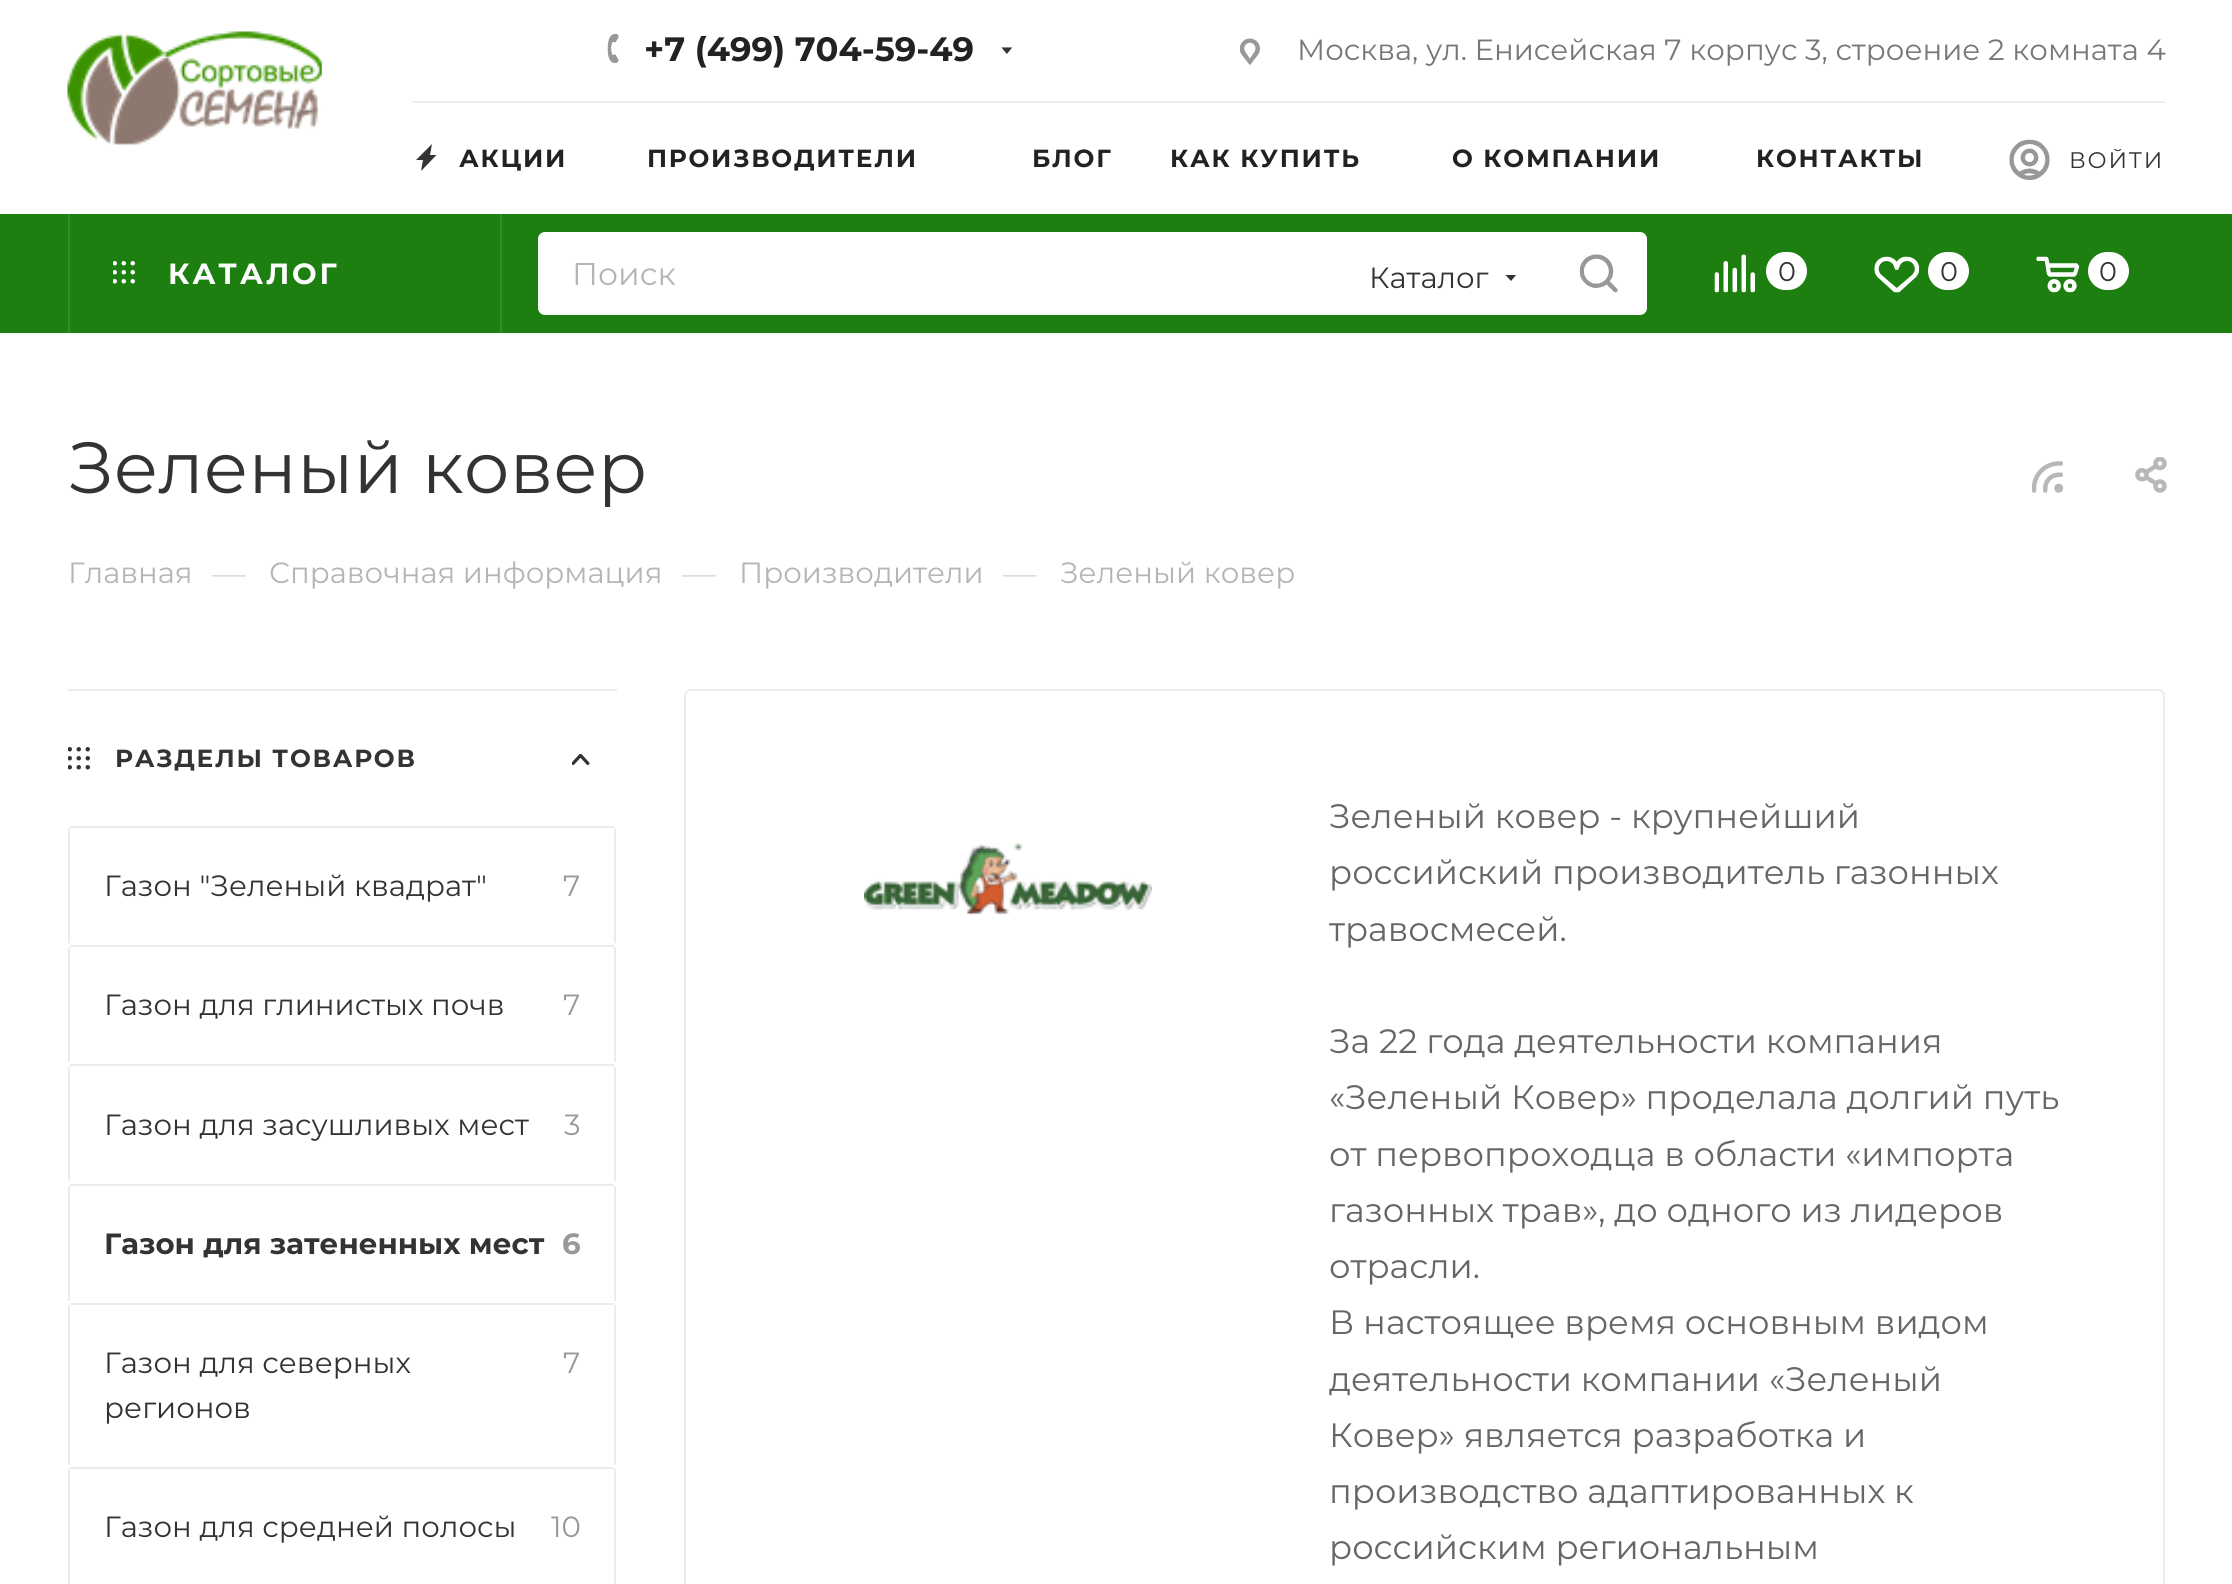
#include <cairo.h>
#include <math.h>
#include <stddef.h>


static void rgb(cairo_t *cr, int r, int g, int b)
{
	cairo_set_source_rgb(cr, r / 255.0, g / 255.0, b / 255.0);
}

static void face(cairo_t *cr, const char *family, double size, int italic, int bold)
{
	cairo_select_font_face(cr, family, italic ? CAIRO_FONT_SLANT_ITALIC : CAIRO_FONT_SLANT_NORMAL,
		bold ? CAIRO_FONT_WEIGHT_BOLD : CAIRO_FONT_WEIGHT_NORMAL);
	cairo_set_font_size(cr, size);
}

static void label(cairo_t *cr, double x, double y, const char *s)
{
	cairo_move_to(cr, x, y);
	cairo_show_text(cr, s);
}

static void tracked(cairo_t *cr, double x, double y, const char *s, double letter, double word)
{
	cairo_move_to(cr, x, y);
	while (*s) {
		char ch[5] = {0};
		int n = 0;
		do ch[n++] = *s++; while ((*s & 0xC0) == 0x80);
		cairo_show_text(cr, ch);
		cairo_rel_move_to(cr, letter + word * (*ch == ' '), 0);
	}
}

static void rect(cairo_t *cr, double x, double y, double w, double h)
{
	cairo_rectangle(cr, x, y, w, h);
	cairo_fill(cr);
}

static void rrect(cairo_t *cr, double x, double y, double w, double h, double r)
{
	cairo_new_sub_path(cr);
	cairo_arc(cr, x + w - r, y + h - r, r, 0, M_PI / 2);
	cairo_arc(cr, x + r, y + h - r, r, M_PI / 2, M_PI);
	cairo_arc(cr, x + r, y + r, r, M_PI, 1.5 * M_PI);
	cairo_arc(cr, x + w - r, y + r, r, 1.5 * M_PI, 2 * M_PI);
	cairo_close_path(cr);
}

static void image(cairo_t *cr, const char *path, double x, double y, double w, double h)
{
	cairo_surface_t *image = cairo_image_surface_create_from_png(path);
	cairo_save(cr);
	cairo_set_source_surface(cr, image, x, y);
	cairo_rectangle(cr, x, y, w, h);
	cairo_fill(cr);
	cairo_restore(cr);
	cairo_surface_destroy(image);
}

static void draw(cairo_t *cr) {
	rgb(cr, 255, 255, 255);
	cairo_paint(cr);
	image(cr, "image0.png", 67, 31, 255, 114);
	image(cr, "image1.png", 607, 33, 12, 30);
	face(cr, "Montserrat", 33.75, 0, 1);
	rgb(cr, 34, 34, 34);
	label(cr, 644, 61, "+7 (499) 704-59-49");
	image(cr, "image2.png", 1001, 47, 12, 7);
	image(cr, "image3.png", 1240, 38, 20, 27);
	face(cr, "Montserrat", 29.25, 0, 0);
	rgb(cr, 119, 119, 119);
	label(cr, 1297, 60, "Москва, ул. Енисейская 7 корпус 3, строение 2 комната 4");
	rgb(cr, 237, 237, 237);
	rect(cr, 412, 101, 1753, 2);
	rgb(cr, 51, 51, 51);
	cairo_set_fill_rule(cr, CAIRO_FILL_RULE_EVEN_ODD);
	cairo_new_path(cr);
	cairo_move_to(cr, 432, 144);
	cairo_line_to(cr, 416, 160);
	cairo_line_to(cr, 423, 160);
	cairo_line_to(cr, 421, 171);
	cairo_line_to(cr, 436.5, 155);
	cairo_line_to(cr, 430, 155);
	cairo_close_path(cr);
	cairo_fill(cr);
	face(cr, "Montserrat", 24.75, 0, 1);
	rgb(cr, 34, 34, 34);
	tracked(cr, 459, 167, "АКЦИИ", 1.75, 0);
	tracked(cr, 647, 167, "ПРОИЗВОДИТЕЛИ", 1.75, 0);
	tracked(cr, 1032, 167, "БЛОГ", 1.75, 0);
	tracked(cr, 1170, 167, "КАК КУПИТЬ", 1.75, 0);
	tracked(cr, 1452, 167, "О КОМПАНИИ", 1.75, 0);
	tracked(cr, 1756, 167, "КОНТАКТЫ", 1.75, 0);
	image(cr, "image4.png", 2009, 139, 41, 41);
	cairo_save(cr);
	cairo_set_fill_rule(cr, CAIRO_FILL_RULE_WINDING);
	cairo_rectangle(cr, 2050, 149, 115, 27);
	cairo_clip(cr);
	face(cr, "Montserrat", 22.5, 0, 0);
	rgb(cr, 51, 51, 51);
	tracked(cr, 2069, 168, "ВОЙТИ", 1.75, 0);
	cairo_restore(cr);
	rgb(cr, 28, 127, 16);
	rect(cr, 0, 214, 2232, 119);
	rgb(cr, 51, 140, 40);
	rect(cr, 500, 214, 2, 119);
	rect(cr, 68, 214, 2, 119);
	image(cr, "image5.png", 113, 261, 22, 23);
	face(cr, "Montserrat", 29.25, 0, 1);
	rgb(cr, 255, 255, 255);
	tracked(cr, 168, 284, "КАТАЛОГ", 2.75, 0);
	rrect(cr, 539, 233, 1107, 81, 6);
	cairo_fill_preserve(cr);
	cairo_stroke(cr);
	face(cr, "Montserrat", 31.5, 0, 0);
	rgb(cr, 182, 181, 181);
	label(cr, 572, 285, "Поиск");
	face(cr, "Montserrat", 29.25, 0, 0);
	rgb(cr, 51, 51, 51);
	label(cr, 1369, 288, "Каталог");
	cairo_save(cr);
	cairo_set_fill_rule(cr, CAIRO_FILL_RULE_WINDING);
	cairo_rectangle(cr, 1505, 275, 12, 7);
	cairo_clip(cr);
	cairo_set_fill_rule(cr, CAIRO_FILL_RULE_EVEN_ODD);
	cairo_new_path(cr);
	cairo_move_to(cr, 1505, 274.5);
	cairo_line_to(cr, 1516.5, 274.5);
	cairo_line_to(cr, 1511, 281);
	cairo_close_path(cr);
	cairo_fill(cr);
	cairo_restore(cr);
	image(cr, "image6.png", 1579, 254, 39, 39);
	image(cr, "image7.png", 1714, 254, 41, 39);
	rgb(cr, 255, 255, 255);
	rrect(cr, 1766, 252, 41, 38, 19);
	cairo_fill(cr);
	face(cr, "Montserrat", 27, 0, 0);
	rgb(cr, 51, 51, 51);
	label(cr, 1778, 281, "0");
	image(cr, "image8.png", 1874, 256, 46, 37);
	rgb(cr, 255, 255, 255);
	rrect(cr, 1928, 252, 41, 38, 19);
	cairo_fill(cr);
	rgb(cr, 51, 51, 51);
	label(cr, 1940, 281, "0");
	image(cr, "image9.png", 2036, 256, 43, 37);
	rgb(cr, 255, 255, 255);
	rrect(cr, 2088, 252, 41, 38, 19);
	cairo_fill(cr);
	rgb(cr, 51, 51, 51);
	label(cr, 2099, 281, "0");
	face(cr, "Montserrat", 72, 0, 0);
	label(cr, 68, 493, "Зеленый ковер");
	image(cr, "image10.png", 2032, 461, 31, 32);
	image(cr, "image11.png", 2135, 457, 32, 36);
	face(cr, "Montserrat", 29.25, 0, 0);
	rgb(cr, 182, 181, 181);
	label(cr, 68, 583, "Главная");
	face(cr, "Montserrat", 33.75, 0, 0);
	rgb(cr, 221, 221, 221);
	label(cr, 212, 585, "—");
	face(cr, "Montserrat", 29.25, 0, 0);
	rgb(cr, 182, 181, 181);
	label(cr, 269, 583, "Справочная информация");
	face(cr, "Montserrat", 33.75, 0, 0);
	rgb(cr, 221, 221, 221);
	label(cr, 682, 585, "—");
	face(cr, "Montserrat", 29.25, 0, 0);
	rgb(cr, 182, 181, 181);
	label(cr, 739, 583, "Производители");
	face(cr, "Montserrat", 33.75, 0, 0);
	rgb(cr, 221, 221, 221);
	label(cr, 1003, 585, "—");
	face(cr, "Montserrat", 29.25, 0, 0);
	rgb(cr, 182, 181, 181);
	label(cr, 1060, 583, "Зеленый ковер");
	rgb(cr, 236, 236, 236);
	rect(cr, 68, 689, 549, 2);
	image(cr, "image12.png", 68, 747, 22, 23);
	face(cr, "Montserrat", 24.75, 0, 1);
	rgb(cr, 51, 51, 51);
	tracked(cr, 115, 767, "РАЗДЕЛЫ ТОВАРОВ", 1.75, 0);
	image(cr, "image13.png", 572, 754, 18, 11);
	rgb(cr, 236, 236, 236);
	rect(cr, 70, 826, 544, 2);
	rect(cr, 614, 828, 2, 115);
	rect(cr, 68, 828, 2, 115);
	face(cr, "Montserrat", 29.25, 0, 0);
	rgb(cr, 51, 51, 51);
	label(cr, 104, 896, "Газон \"Зеленый квадрат\"");
	rgb(cr, 153, 153, 153);
	label(cr, 563, 896, "7");
	rgb(cr, 236, 236, 236);
	rect(cr, 70, 945, 544, 2);
	rect(cr, 614, 947, 2, 115);
	rect(cr, 68, 947, 2, 115);
	rgb(cr, 51, 51, 51);
	label(cr, 104, 1015, "Газон для глинистых почв");
	rgb(cr, 153, 153, 153);
	label(cr, 563, 1015, "7");
	rgb(cr, 236, 236, 236);
	rect(cr, 70, 1064, 544, 2);
	rect(cr, 614, 1067, 2, 114);
	rect(cr, 68, 1067, 2, 114);
	rgb(cr, 51, 51, 51);
	label(cr, 104, 1135, "Газон для засушливых мест");
	rgb(cr, 153, 153, 153);
	label(cr, 564, 1135, "3");
	rgb(cr, 236, 236, 236);
	rect(cr, 70, 1184, 544, 2);
	rect(cr, 614, 1186, 2, 115);
	rect(cr, 68, 1186, 2, 115);
	face(cr, "Montserrat", 29.25, 0, 1);
	rgb(cr, 51, 51, 51);
	label(cr, 104, 1254, "Газон для затененных мест");
	rgb(cr, 153, 153, 153);
	label(cr, 562, 1254, "6");
	rgb(cr, 236, 236, 236);
	rect(cr, 70, 1303, 544, 2);
	rect(cr, 614, 1305, 2, 160);
	rect(cr, 68, 1305, 2, 160);
	face(cr, "Montserrat", 29.25, 0, 0);
	rgb(cr, 51, 51, 51);
	label(cr, 104, 1373, "Газон для северных");
	rgb(cr, 153, 153, 153);
	label(cr, 563, 1373, "7");
	rgb(cr, 51, 51, 51);
	label(cr, 104, 1418, "регионов");
	rgb(cr, 236, 236, 236);
	rect(cr, 70, 1467, 544, 2);
	rect(cr, 614, 1469, 2, 115);
	rect(cr, 68, 1469, 2, 115);
	rgb(cr, 51, 51, 51);
	label(cr, 104, 1537, "Газон для средней полосы");
	rgb(cr, 153, 153, 153);
	label(cr, 551, 1537, "10");
	rrect(cr, 685, 690, 1479, 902, 6);
	rgb(cr, 236, 236, 236);
	cairo_stroke(cr);
	image(cr, "image14.png", 864, 843, 288, 72);
	face(cr, "Montserrat", 33.75, 0, 0);
	rgb(cr, 102, 102, 102);
	label(cr, 1329, 828, "Зеленый ковер - крупнейший");
	label(cr, 1329, 884, "российский производитель газонных");
	label(cr, 1329, 941, "травосмесей.");
	label(cr, 1329, 1053, "За 22 года деятельности компания");
	label(cr, 1329, 1109, "«Зеленый Ковер» проделала долгий путь");
	label(cr, 1329, 1166, "от первопроходца в области «импорта");
	label(cr, 1329, 1222, "газонных трав», до одного из лидеров");
	label(cr, 1329, 1278, "отрасли.");
	label(cr, 1329, 1334, "В настоящее время основным видом");
	label(cr, 1329, 1391, "деятельности компании «Зеленый");
	label(cr, 1329, 1447, "Ковер» является разработка и");
	label(cr, 1329, 1503, "производство адаптированных к");
	label(cr, 1329, 1559, "российским региональным");
}

int main(void) {
	cairo_surface_t *surface = cairo_image_surface_create(CAIRO_FORMAT_RGB24, 2232, 1584);
	cairo_t *cr = cairo_create(surface);
	cairo_font_options_t *options = cairo_font_options_create();
	cairo_font_options_set_hint_metrics(options, CAIRO_HINT_METRICS_OFF);
	cairo_font_options_set_hint_style(options, CAIRO_HINT_STYLE_NONE);
	cairo_set_font_options(cr, options);
	cairo_set_miter_limit(cr, 4);
	draw(cr);
	cairo_surface_write_to_png(surface, "render.png");
	cairo_font_options_destroy(options);
	cairo_destroy(cr);
	cairo_surface_destroy(surface);
	return 0;
}
